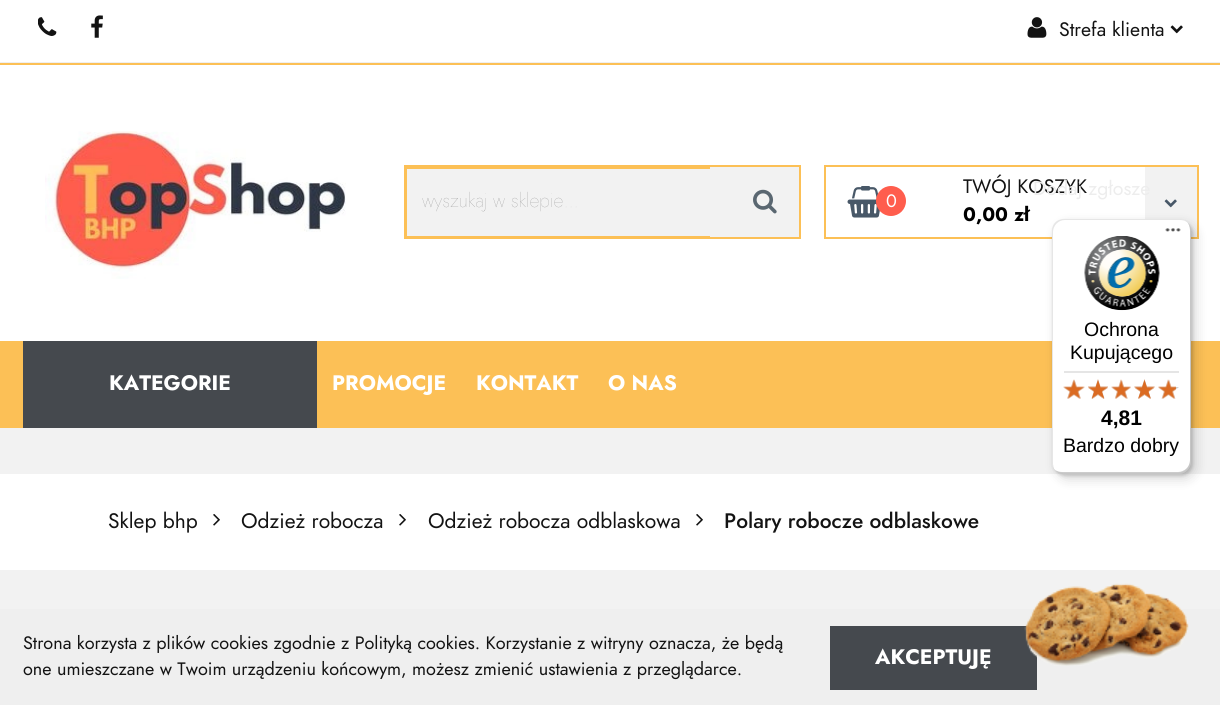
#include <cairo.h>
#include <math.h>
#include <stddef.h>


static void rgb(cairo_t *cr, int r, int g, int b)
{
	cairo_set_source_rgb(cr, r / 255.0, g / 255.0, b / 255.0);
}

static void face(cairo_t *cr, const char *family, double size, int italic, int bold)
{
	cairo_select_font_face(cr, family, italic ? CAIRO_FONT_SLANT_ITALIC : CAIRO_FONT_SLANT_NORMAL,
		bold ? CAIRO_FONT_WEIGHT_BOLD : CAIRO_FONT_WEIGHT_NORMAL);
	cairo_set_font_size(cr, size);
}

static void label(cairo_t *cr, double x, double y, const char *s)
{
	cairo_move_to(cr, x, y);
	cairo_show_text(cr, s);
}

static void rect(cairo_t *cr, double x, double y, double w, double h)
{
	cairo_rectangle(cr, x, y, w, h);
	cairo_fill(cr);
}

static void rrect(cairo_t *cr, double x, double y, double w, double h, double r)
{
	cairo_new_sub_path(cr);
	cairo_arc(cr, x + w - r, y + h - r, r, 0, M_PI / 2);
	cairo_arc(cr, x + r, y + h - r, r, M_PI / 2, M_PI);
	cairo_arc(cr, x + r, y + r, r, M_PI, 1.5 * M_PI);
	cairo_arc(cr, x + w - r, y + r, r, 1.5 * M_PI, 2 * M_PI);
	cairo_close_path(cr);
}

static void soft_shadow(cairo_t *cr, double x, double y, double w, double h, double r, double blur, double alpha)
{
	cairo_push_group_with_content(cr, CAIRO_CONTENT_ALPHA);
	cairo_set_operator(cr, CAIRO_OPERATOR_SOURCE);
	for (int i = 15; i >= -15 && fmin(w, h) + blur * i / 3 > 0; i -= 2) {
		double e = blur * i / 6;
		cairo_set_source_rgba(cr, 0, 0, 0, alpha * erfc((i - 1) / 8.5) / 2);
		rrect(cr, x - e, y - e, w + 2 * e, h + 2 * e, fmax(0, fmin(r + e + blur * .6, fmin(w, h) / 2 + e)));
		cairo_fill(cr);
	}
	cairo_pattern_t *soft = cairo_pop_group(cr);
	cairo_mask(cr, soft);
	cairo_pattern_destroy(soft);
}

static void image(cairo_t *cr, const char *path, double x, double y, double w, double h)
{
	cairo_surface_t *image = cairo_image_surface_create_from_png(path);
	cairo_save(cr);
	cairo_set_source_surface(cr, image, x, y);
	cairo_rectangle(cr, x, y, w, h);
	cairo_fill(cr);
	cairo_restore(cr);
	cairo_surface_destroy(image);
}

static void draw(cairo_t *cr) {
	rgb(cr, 242, 242, 242);
	cairo_paint(cr);
	rgb(cr, 252, 192, 86);
	rect(cr, 0, 63, 1220, 2);
	rgb(cr, 255, 255, 255);
	rect(cr, 0, 65, 1220, 276);
	image(cr, "image0.png", 45, 131, 301, 148);
	rgb(cr, 242, 242, 242);
	rect(cr, 710, 167, 89, 70);
	cairo_rectangle(cr, 405, 166, 395, 72);
	rgb(cr, 252, 192, 86);
	cairo_stroke(cr);
	rgb(cr, 242, 242, 242);
	rect(cr, 407, 169, 303, 67);
	rgb(cr, 252, 192, 86);
	rect(cr, 405, 167, 305, 2);
	rect(cr, 405, 236, 305, 1);
	rect(cr, 406, 167, 1, 70);
	face(cr, "Jost Thin", 19.5, 0, 0);
	rgb(cr, 108, 108, 108);
	label(cr, 422, 207, "wyszukaj w sklepie...");
	image(cr, "image1.png", 753, 189, 24, 25);
	cairo_rectangle(cr, 825, 166, 373, 72);
	rgb(cr, 252, 192, 86);
	cairo_stroke(cr);
	image(cr, "image2.png", 847, 186, 33, 32);
	rgb(cr, 255, 93, 77);
	cairo_arc(cr, 891, 201, 15, 0, 2 * M_PI);
	cairo_fill(cr);
	face(cr, "Jost", 18, 0, 0);
	rgb(cr, 255, 255, 255);
	label(cr, 886, 207, "0");
	face(cr, "Jost", 19.5, 0, 0);
	rgb(cr, 19, 19, 19);
	label(cr, 963, 193, "TWÓJ KOSZYK");
	face(cr, "Jost", 19.5, 0, 1);
	rgb(cr, 0, 0, 0);
	label(cr, 963, 221, "0,00 zł");
	rgb(cr, 242, 242, 242);
	rect(cr, 1145, 167, 52, 70);
	image(cr, "image3.png", 1164, 199, 13, 9);
	rgb(cr, 255, 255, 255);
	rect(cr, 0, 0, 1220, 62);
	image(cr, "image4.png", 38, 17, 19, 19);
	image(cr, "image5.png", 91, 15, 12, 23);
	image(cr, "image6.png", 1027, 17, 20, 21);
	face(cr, "Jost", 19.5, 0, 0);
	rgb(cr, 19, 19, 19);
	label(cr, 1059, 36, "Strefa klienta");
	image(cr, "image7.png", 1170, 25, 13, 9);
	rgb(cr, 237, 237, 237);
	label(cr, 1033, 195, "Dodaj zgłosze");
	rgb(cr, 239, 239, 239);
	rect(cr, 0, 62, 1220, 1);
	rgb(cr, 252, 192, 86);
	rect(cr, 0, 341, 1220, 87);
	rgb(cr, 69, 73, 78);
	rect(cr, 23, 341, 294, 87);
	face(cr, "Jost", 21, 0, 1);
	rgb(cr, 255, 255, 255);
	label(cr, 109, 390, "KATEGORIE");
	label(cr, 332, 390, "PROMOCJE");
	label(cr, 476, 390, "KONTAKT");
	label(cr, 608, 390, "O NAS");
	rect(cr, 0, 474, 1220, 96);
	face(cr, "Jost", 21, 0, 0);
	rgb(cr, 19, 19, 19);
	label(cr, 108, 528, "Sklep bhp");
	image(cr, "image8.png", 213, 514, 7, 12);
	label(cr, 241, 528, "Odzież robocza");
	image(cr, "image8.png", 399, 514, 7, 12);
	label(cr, 428, 528, "Odzież robocza odblaskowa");
	image(cr, "image8.png", 696, 514, 7, 12);
	face(cr, "Jost Medium", 21, 0, 0);
	label(cr, 724, 528, "Polary robocze odblaskowe");
	rgb(cr, 0, 0, 0);
	soft_shadow(cr, 1056, 224, 140, 255, 12, 6, 0.15);
	soft_shadow(cr, 1053, 221, 140, 255, 12, 1.5, 0.15);
	rgb(cr, 255, 255, 255);
	rrect(cr, 1052, 219, 139, 255, 12);
	cairo_fill(cr);
	cairo_set_source_rgba(cr, 0, 0, 0, 0.1);
	cairo_new_path(cr);
	cairo_move_to(cr, 1065, 220);
	cairo_line_to(cr, 1180, 220);
	cairo_curve_to(cr, 1183, 220, 1186, 221, 1188, 223);
	cairo_curve_to(cr, 1186, 221, 1183, 219, 1179, 219);
	cairo_line_to(cr, 1064, 219);
	cairo_curve_to(cr, 1057, 219, 1052, 224, 1052, 231);
	cairo_line_to(cr, 1052, 462);
	cairo_curve_to(cr, 1052, 464, 1053, 467, 1054, 469);
	cairo_line_to(cr, 1053, 464);
	cairo_line_to(cr, 1053, 232);
	cairo_curve_to(cr, 1053, 226, 1058, 220, 1065, 220);
	cairo_close_path(cr);
	cairo_fill(cr);
	cairo_set_source_rgba(cr, 0, 0, 0, 0.2);
	cairo_new_path(cr);
	cairo_move_to(cr, 1055, 470);
	cairo_curve_to(cr, 1057, 472, 1060, 474, 1064, 474);
	cairo_line_to(cr, 1179, 474);
	cairo_curve_to(cr, 1186, 474, 1191, 469, 1191, 462);
	cairo_line_to(cr, 1191, 231);
	cairo_curve_to(cr, 1191, 227, 1189, 224, 1187, 222);
	cairo_curve_to(cr, 1189, 224, 1190, 227, 1190, 230);
	cairo_line_to(cr, 1190, 460);
	cairo_curve_to(cr, 1190, 467, 1184, 472, 1178, 472);
	cairo_line_to(cr, 1062, 472);
	cairo_curve_to(cr, 1059, 472, 1057, 471, 1055, 470);
	cairo_close_path(cr);
	cairo_fill(cr);
	cairo_set_source_rgba(cr, 0.196, 0.196, 0.196, 0.2);
	cairo_new_path(cr);
	cairo_move_to(cr, 1056, 471);
	cairo_curve_to(cr, 1058, 473, 1061, 474, 1064, 474);
	cairo_line_to(cr, 1179, 474);
	cairo_curve_to(cr, 1186, 474, 1191, 469, 1191, 462);
	cairo_line_to(cr, 1191, 231);
	cairo_curve_to(cr, 1191, 228, 1190, 225, 1188, 223);
	cairo_curve_to(cr, 1189, 225, 1190, 227, 1190, 230);
	cairo_line_to(cr, 1190, 461);
	cairo_curve_to(cr, 1190, 468, 1185, 473, 1178, 473);
	cairo_line_to(cr, 1063, 473);
	cairo_curve_to(cr, 1060, 473, 1058, 472, 1056, 471);
	cairo_close_path(cr);
	cairo_fill(cr);
	cairo_set_source_rgba(cr, 1, 1, 1, 0.3);
	cairo_new_path(cr);
	cairo_move_to(cr, 1056, 471);
	cairo_curve_to(cr, 1058, 473, 1061, 474, 1064, 474);
	cairo_line_to(cr, 1179, 474);
	cairo_curve_to(cr, 1186, 474, 1191, 469, 1191, 462);
	cairo_line_to(cr, 1191, 231);
	cairo_curve_to(cr, 1191, 227, 1189, 224, 1187, 222);
	cairo_curve_to(cr, 1189, 224, 1190, 227, 1190, 230);
	cairo_line_to(cr, 1190, 461);
	cairo_curve_to(cr, 1190, 468, 1185, 473, 1178, 473);
	cairo_line_to(cr, 1063, 473);
	cairo_curve_to(cr, 1060, 473, 1058, 472, 1056, 471);
	cairo_close_path(cr);
	cairo_fill(cr);
	image(cr, "image9.png", 1165, 228, 16, 4);
	image(cr, "image10.png", 1084, 236, 76, 75);
	face(cr, "Liberation Sans", 19.5, 0, 0);
	rgb(cr, 0, 0, 0);
	label(cr, 1084, 336, "Ochrona");
	label(cr, 1070, 359, "Kupującego");
	rgb(cr, 229, 229, 229);
	rect(cr, 1064, 371, 115, 2);
	image(cr, "image11.png", 1063, 380, 22, 19);
	image(cr, "image12.png", 1088, 379, 20, 20);
	image(cr, "image13.png", 1111, 380, 20, 19);
	image(cr, "image14.png", 1134, 379, 21, 20);
	image(cr, "image15.png", 1158, 380, 21, 19);
	image(cr, "image16.png", 1063, 379, 22, 20);
	image(cr, "image17.png", 1088, 379, 20, 20);
	image(cr, "image18.png", 1111, 379, 20, 20);
	image(cr, "image19.png", 1134, 379, 21, 20);
	image(cr, "image20.png", 1158, 379, 18, 20);
	face(cr, "Liberation Sans", 21, 0, 1);
	rgb(cr, 0, 0, 0);
	label(cr, 1101, 425, "4,81");
	face(cr, "Liberation Sans", 19.5, 0, 0);
	label(cr, 1063, 452, "Bardzo dobry");
	rgb(cr, 239, 239, 239);
	rect(cr, 0, 609, 1220, 96);
	face(cr, "Jost", 18, 0, 0);
	rgb(cr, 19, 19, 19);
	label(cr, 23, 649, "Strona korzysta z plików cookies zgodnie z Polityką cookies. Korzystanie z witryny oznacza, że będą");
	label(cr, 23, 675, "one umieszczane w Twoim urządzeniu końcowym, możesz zmienić ustawienia z przeglądarce.");
	rgb(cr, 69, 73, 78);
	rect(cr, 830, 626, 207, 64);
	face(cr, "Jost", 21, 0, 1);
	rgb(cr, 255, 255, 255);
	label(cr, 875, 664, "AKCEPTUJĘ");
	image(cr, "image21.png", 1024, 583, 165, 83);
}

int main(void) {
	cairo_surface_t *surface = cairo_image_surface_create(CAIRO_FORMAT_RGB24, 1220, 705);
	cairo_t *cr = cairo_create(surface);
	cairo_font_options_t *options = cairo_font_options_create();
	cairo_font_options_set_hint_metrics(options, CAIRO_HINT_METRICS_OFF);
	cairo_font_options_set_hint_style(options, CAIRO_HINT_STYLE_NONE);
	cairo_set_font_options(cr, options);
	cairo_set_miter_limit(cr, 4);
	draw(cr);
	cairo_surface_write_to_png(surface, "render.png");
	cairo_font_options_destroy(options);
	cairo_destroy(cr);
	cairo_surface_destroy(surface);
	return 0;
}
